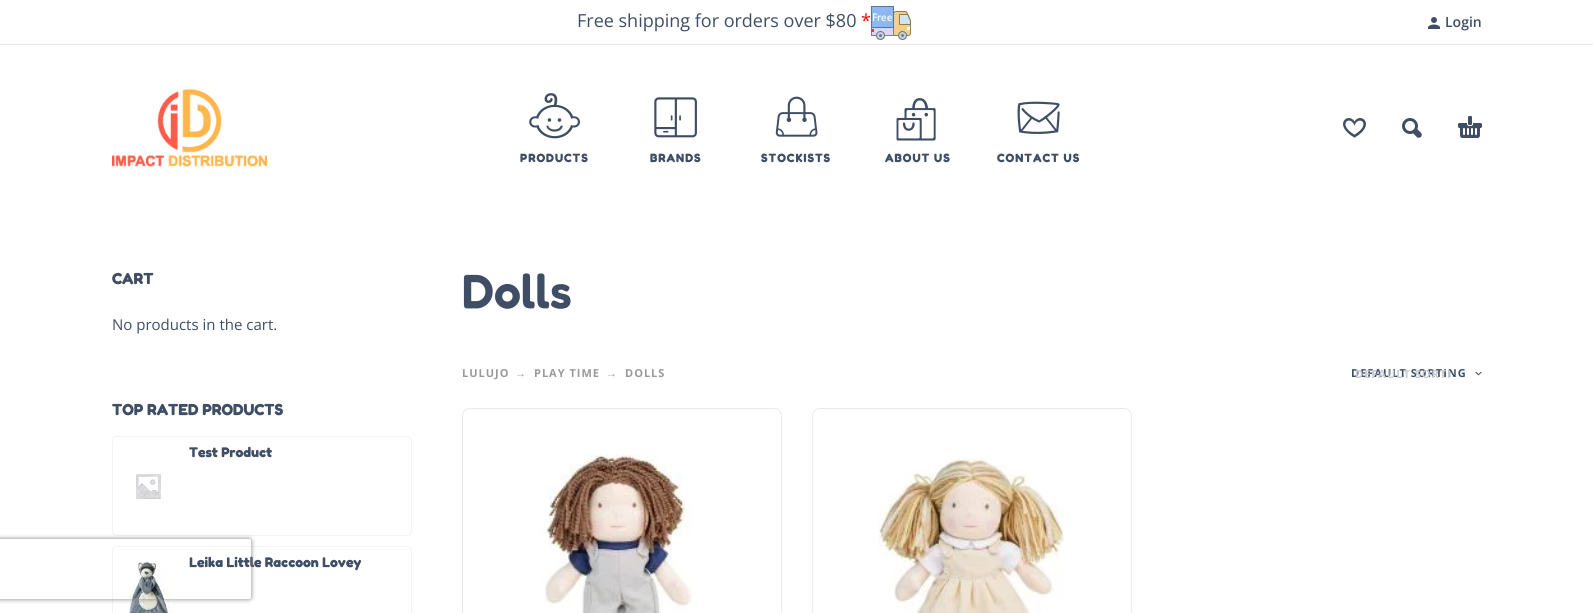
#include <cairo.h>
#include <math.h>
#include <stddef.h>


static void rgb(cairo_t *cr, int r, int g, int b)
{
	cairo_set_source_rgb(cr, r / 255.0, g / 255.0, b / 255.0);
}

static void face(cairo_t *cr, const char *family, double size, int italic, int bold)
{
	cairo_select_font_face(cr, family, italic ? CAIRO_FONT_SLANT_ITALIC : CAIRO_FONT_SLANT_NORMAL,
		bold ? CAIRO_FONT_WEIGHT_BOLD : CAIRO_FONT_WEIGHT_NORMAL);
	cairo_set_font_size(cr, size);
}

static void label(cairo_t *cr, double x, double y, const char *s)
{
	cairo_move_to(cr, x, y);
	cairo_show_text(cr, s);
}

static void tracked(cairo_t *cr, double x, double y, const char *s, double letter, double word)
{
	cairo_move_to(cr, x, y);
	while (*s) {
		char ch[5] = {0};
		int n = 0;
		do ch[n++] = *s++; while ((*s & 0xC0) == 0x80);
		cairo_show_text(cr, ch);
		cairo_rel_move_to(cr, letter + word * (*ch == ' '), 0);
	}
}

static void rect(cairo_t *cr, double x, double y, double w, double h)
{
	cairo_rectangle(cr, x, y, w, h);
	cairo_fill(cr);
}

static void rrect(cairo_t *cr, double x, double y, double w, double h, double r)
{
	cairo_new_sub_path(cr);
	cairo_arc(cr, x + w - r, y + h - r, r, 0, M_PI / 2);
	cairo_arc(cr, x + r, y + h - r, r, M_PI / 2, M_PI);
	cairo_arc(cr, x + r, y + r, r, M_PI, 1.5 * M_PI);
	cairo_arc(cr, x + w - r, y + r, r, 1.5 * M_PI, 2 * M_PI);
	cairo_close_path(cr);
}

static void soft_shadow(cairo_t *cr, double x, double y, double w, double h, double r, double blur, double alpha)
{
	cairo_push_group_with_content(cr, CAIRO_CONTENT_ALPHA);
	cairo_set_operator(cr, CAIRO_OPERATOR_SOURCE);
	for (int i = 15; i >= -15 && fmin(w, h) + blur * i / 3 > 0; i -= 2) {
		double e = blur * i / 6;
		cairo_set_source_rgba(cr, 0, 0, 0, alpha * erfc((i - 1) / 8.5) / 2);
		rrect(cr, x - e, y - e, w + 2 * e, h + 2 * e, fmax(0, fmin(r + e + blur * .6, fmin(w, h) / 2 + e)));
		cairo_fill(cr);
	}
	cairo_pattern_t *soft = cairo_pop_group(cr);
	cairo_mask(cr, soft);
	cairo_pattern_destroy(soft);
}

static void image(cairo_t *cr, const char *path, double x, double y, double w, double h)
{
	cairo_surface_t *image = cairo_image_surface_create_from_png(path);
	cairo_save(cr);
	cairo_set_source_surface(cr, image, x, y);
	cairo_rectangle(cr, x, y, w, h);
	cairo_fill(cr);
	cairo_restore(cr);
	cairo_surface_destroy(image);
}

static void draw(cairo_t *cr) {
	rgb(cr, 255, 255, 255);
	cairo_paint(cr);
	rgb(cr, 232, 232, 232);
	rect(cr, 0, 44, 1593, 1);
	face(cr, "Open Sans", 18, 0, 0);
	rgb(cr, 64, 78, 101);
	label(cr, 577, 27, "Free shipping for orders over $80");
	rgb(cr, 255, 0, 0);
	label(cr, 861, 27, "*");
	image(cr, "image0.png", 871, 6, 40, 34);
	image(cr, "image1.png", 1428, 17, 12, 12);
	face(cr, "Open Sans SemiBold", 14, 0, 0);
	rgb(cr, 64, 78, 101);
	label(cr, 1445, 27, "Login");
	image(cr, "image2.png", 112, 89, 155, 78);
	image(cr, "image3.png", 1343, 118, 23, 20);
	image(cr, "image4.png", 1402, 118, 20, 20);
	image(cr, "image5.png", 1458, 116, 24, 22);
	image(cr, "image6.png", 529, 93, 51, 46);
	face(cr, "Fredoka", 12, 0, 1);
	tracked(cr, 520, 162, "PRODUCTS", 1, 0);
	image(cr, "image7.png", 654, 97, 43, 41);
	tracked(cr, 650, 162, "BRANDS", 1, 0);
	image(cr, "image8.png", 775, 96, 43, 41);
	tracked(cr, 761, 162, "STOCKISTS", 1, 0);
	image(cr, "image9.png", 896, 98, 40, 43);
	tracked(cr, 885, 162, "ABOUT US", 1, 0);
	image(cr, "image10.png", 1017, 101, 43, 33);
	tracked(cr, 997, 162, "CONTACT US", 1, 0);
	face(cr, "Fredoka", 16, 0, 1);
	label(cr, 112, 284, "CART");
	face(cr, "Open Sans", 15, 0, 0);
	label(cr, 112, 330, "No products in the cart.");
	face(cr, "Fredoka", 16, 0, 1);
	label(cr, 112, 415, "TOP RATED PRODUCTS");
	rrect(cr, 112.5, 436.5, 299, 99, 4.5);
	rgb(cr, 243, 243, 243);
	cairo_set_line_width(cr, 1);
	cairo_stroke(cr);
	face(cr, "Fredoka", 14, 0, 1);
	rgb(cr, 64, 78, 101);
	label(cr, 189, 457, "Test Product");
	image(cr, "image11.png", 114, 467, 47, 32);
	rrect(cr, 112.5, 546.5, 299, 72, 4.5);
	rgb(cr, 243, 243, 243);
	cairo_stroke(cr);
	image(cr, "image12.png", 114, 561, 59, 52);
	rgb(cr, 64, 78, 101);
	label(cr, 189, 567, "Leika Little Raccoon Lovey");
	face(cr, "Fredoka SemiBold", 48, 0, 0);
	label(cr, 462, 308, "Dolls");
	face(cr, "Open Sans", 11, 0, 1);
	rgb(cr, 154, 154, 154);
	tracked(cr, 462, 377, "LULUJO", 1, 0);
	face(cr, "Liberation Sans", 11, 0, 1);
	tracked(cr, 515, 377, "→", 1, 0);
	face(cr, "Open Sans", 11, 0, 1);
	tracked(cr, 534, 377, "PLAY TIME", 1, 0);
	face(cr, "Liberation Sans", 11, 0, 1);
	tracked(cr, 606, 377, "→", 1, 0);
	face(cr, "Open Sans", 11, 0, 1);
	tracked(cr, 625, 377, "DOLLS", 1, 0);
	image(cr, "image13.png", 1475, 372, 7, 4);
	rgb(cr, 64, 78, 101);
	tracked(cr, 1351, 377, "DEFAULT SORTING", 1, 0);
	rgb(cr, 198, 202, 209);
	tracked(cr, 1355, 378, "DEFAULT SORTI", 1, 0);
	rrect(cr, 462.5, 408.5, 319, 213, 7.5);
	rgb(cr, 234, 234, 234);
	cairo_stroke(cr);
	image(cr, "image14.png", 541, 454, 151, 159);
	rrect(cr, 812.5, 408.5, 319, 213, 7.5);
	cairo_stroke(cr);
	image(cr, "image15.png", 878, 458, 186, 155);
	cairo_save(cr);
	cairo_set_fill_rule(cr, CAIRO_FILL_RULE_EVEN_ODD);
	cairo_new_path(cr);
	cairo_move_to(cr, 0, 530);
	cairo_line_to(cr, 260, 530);
	cairo_line_to(cr, 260, 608);
	cairo_line_to(cr, 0, 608);
	cairo_close_path(cr);
	cairo_move_to(cr, -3, 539);
	cairo_line_to(cr, 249, 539);
	cairo_curve_to(cr, 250, 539, 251, 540, 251, 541);
	cairo_line_to(cr, 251, 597);
	cairo_curve_to(cr, 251, 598, 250, 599, 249, 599);
	cairo_line_to(cr, -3, 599);
	cairo_curve_to(cr, -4, 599, -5, 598, -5, 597);
	cairo_line_to(cr, -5, 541);
	cairo_curve_to(cr, -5, 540, -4, 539, -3, 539);
	cairo_close_path(cr);
	cairo_clip(cr);
	rgb(cr, 128, 128, 128);
	soft_shadow(cr, -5, 539, 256, 60, 2, 2.5, 1);
	cairo_restore(cr);
}

int main(void) {
	cairo_surface_t *surface = cairo_image_surface_create(CAIRO_FORMAT_RGB24, 1593, 613);
	cairo_t *cr = cairo_create(surface);
	cairo_font_options_t *options = cairo_font_options_create();
	cairo_font_options_set_hint_metrics(options, CAIRO_HINT_METRICS_OFF);
	cairo_font_options_set_hint_style(options, CAIRO_HINT_STYLE_NONE);
	cairo_set_font_options(cr, options);
	cairo_set_miter_limit(cr, 4);
	draw(cr);
	cairo_surface_write_to_png(surface, "render.png");
	cairo_font_options_destroy(options);
	cairo_destroy(cr);
	cairo_surface_destroy(surface);
	return 0;
}
